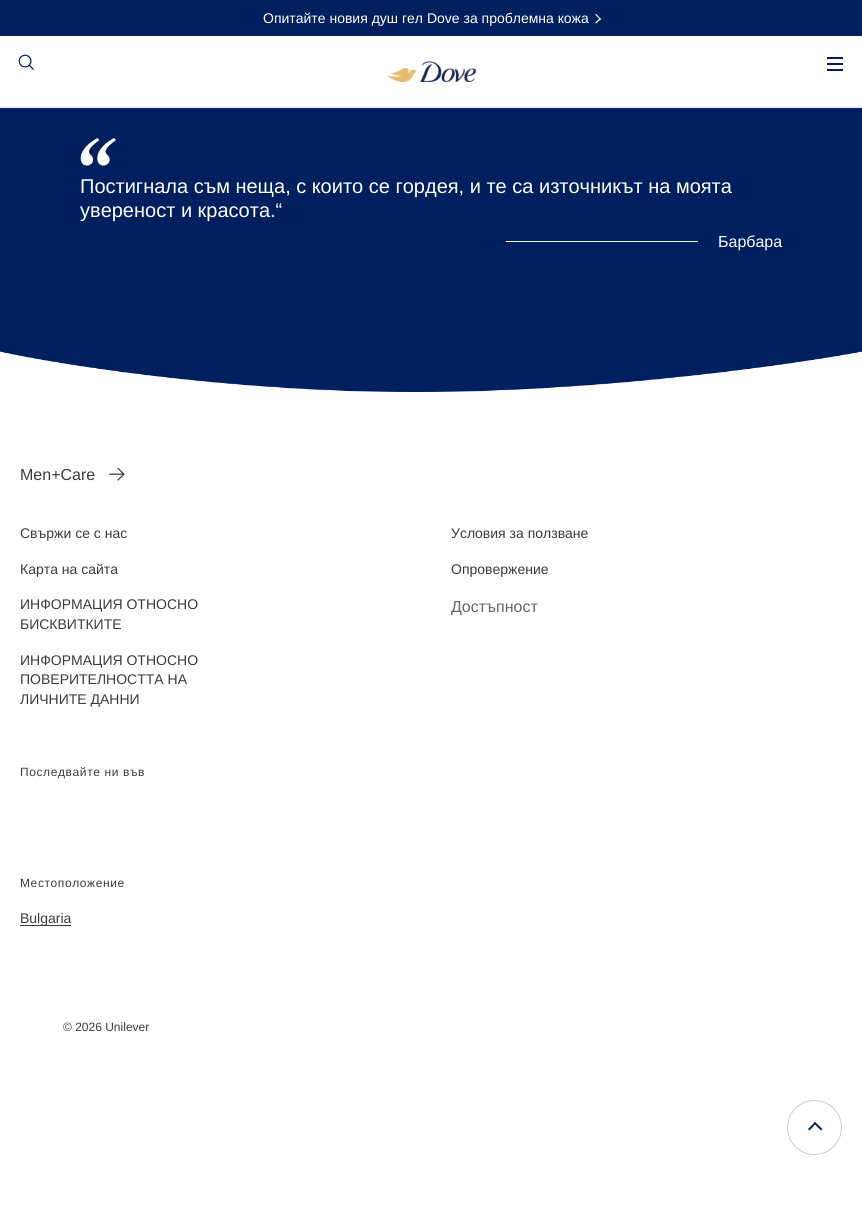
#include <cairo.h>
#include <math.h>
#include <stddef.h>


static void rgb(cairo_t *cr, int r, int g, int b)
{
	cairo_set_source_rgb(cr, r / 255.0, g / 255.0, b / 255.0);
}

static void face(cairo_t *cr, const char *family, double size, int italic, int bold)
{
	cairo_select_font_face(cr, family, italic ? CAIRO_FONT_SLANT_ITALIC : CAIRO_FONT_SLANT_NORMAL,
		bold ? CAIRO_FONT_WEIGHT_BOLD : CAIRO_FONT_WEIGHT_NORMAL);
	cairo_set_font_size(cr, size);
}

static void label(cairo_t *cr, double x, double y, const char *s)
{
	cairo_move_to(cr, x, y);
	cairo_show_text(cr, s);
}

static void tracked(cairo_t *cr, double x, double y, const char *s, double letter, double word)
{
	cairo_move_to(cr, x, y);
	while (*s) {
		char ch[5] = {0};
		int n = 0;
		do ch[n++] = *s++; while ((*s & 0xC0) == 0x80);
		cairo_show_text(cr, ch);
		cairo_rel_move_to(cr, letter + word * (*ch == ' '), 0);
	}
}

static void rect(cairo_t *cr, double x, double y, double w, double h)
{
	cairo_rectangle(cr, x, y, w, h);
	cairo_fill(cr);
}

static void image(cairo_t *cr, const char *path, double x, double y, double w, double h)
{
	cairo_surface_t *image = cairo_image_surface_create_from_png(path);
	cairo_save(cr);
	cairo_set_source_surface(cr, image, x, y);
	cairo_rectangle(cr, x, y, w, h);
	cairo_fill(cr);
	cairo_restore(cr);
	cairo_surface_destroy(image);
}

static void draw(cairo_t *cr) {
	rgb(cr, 255, 255, 255);
	cairo_paint(cr);
	rgb(cr, 236, 239, 241);
	rect(cr, 0, 106, 862, 2);
	rgb(cr, 0, 31, 95);
	rect(cr, 0, 0, 862, 36);
	face(cr, "Liberation Sans", 14, 0, 0);
	rgb(cr, 255, 255, 255);
	label(cr, 263, 23, "Опитайте новия душ гел Dove за проблемна кожа");
	cairo_new_path(cr);
	cairo_move_to(cr, 595, 14.5);
	cairo_line_to(cr, 596, 14);
	cairo_line_to(cr, 601, 19);
	cairo_line_to(cr, 600, 19.5);
	cairo_close_path(cr);
	cairo_fill(cr);
	cairo_new_path(cr);
	cairo_move_to(cr, 595, 23);
	cairo_line_to(cr, 600, 18);
	cairo_line_to(cr, 601, 19);
	cairo_line_to(cr, 596, 23.5);
	cairo_close_path(cr);
	cairo_fill(cr);
	image(cr, "image0.png", 18, 54, 16, 16);
	image(cr, "image1.png", 387, 61, 89, 21);
	rgb(cr, 0, 31, 95);
	rect(cr, 827, 57, 16, 2);
	rect(cr, 827, 63, 16, 2);
	rect(cr, 827, 69, 16, 2);
	rect(cr, 0, 108, 862, 284);
	image(cr, "image2.png", 80, 138, 36, 28);
	face(cr, "Liberation Sans", 20, 0, 0);
	rgb(cr, 255, 255, 255);
	label(cr, 80, 193, "Постигнала съм неща, с които се гордея, и те са източникът на моята");
	label(cr, 80, 217, "увереност и красота.“");
	rect(cr, 506, 241, 192, 1);
	face(cr, "Liberation Sans", 16, 0, 0);
	label(cr, 718, 247, "Барбара");
	image(cr, "image3.png", 0, 351, 862, 41);
	rgb(cr, 59, 59, 59);
	label(cr, 20, 480, "Men+Care");
	image(cr, "image4.png", 109, 467, 16, 14);
	face(cr, "Liberation Sans", 14, 0, 0);
	label(cr, 20, 538, "Свържи се с нас");
	label(cr, 20, 574, "Карта на сайта");
	label(cr, 20, 609, "ИНФОРМАЦИЯ ОТНОСНО");
	label(cr, 20, 629, "БИСКВИТКИТЕ");
	label(cr, 20, 665, "ИНФОРМАЦИЯ ОТНОСНО");
	label(cr, 20, 684, "ПОВЕРИТЕЛНОСТТА НА");
	label(cr, 20, 704, "ЛИЧНИТЕ ДАННИ");
	label(cr, 451, 538, "Условия за ползване");
	label(cr, 451, 574, "Опровержение");
	face(cr, "Liberation Sans", 16, 0, 0);
	rgb(cr, 102, 102, 102);
	label(cr, 451, 612, "Достъпност");
	face(cr, "Liberation Sans", 12, 0, 0);
	rgb(cr, 59, 59, 59);
	tracked(cr, 20, 776, "Последвайте ни във", 0.6, 0);
	tracked(cr, 20, 887, "Местоположение", 0.6, 0);
	rect(cr, 20, 925, 51, 1);
	face(cr, "Liberation Sans", 14, 0, 0);
	label(cr, 20, 923, "Bulgaria");
	face(cr, "Liberation Sans", 12, 0, 0);
	label(cr, 63, 1031, "© 2026 Unilever");
	cairo_new_path(cr);
	cairo_arc(cr, 814.5, 1127.5, 27, 0, 2 * M_PI);
	rgb(cr, 204, 204, 204);
	cairo_set_line_width(cr, 1);
	cairo_stroke(cr);
	rgb(cr, 0, 38, 99);
	cairo_new_path(cr);
	cairo_move_to(cr, 809.5, 1130.5);
	cairo_line_to(cr, 808, 1129);
	cairo_line_to(cr, 815, 1122);
	cairo_line_to(cr, 816.5, 1123);
	cairo_close_path(cr);
	cairo_fill(cr);
	cairo_new_path(cr);
	cairo_move_to(cr, 821, 1130.5);
	cairo_line_to(cr, 813.5, 1123);
	cairo_line_to(cr, 815, 1122);
	cairo_line_to(cr, 822.5, 1129);
	cairo_close_path(cr);
	cairo_fill(cr);
}

int main(void) {
	cairo_surface_t *surface = cairo_image_surface_create(CAIRO_FORMAT_RGB24, 862, 1209);
	cairo_t *cr = cairo_create(surface);
	cairo_font_options_t *options = cairo_font_options_create();
	cairo_font_options_set_hint_metrics(options, CAIRO_HINT_METRICS_OFF);
	cairo_font_options_set_hint_style(options, CAIRO_HINT_STYLE_NONE);
	cairo_set_font_options(cr, options);
	cairo_set_miter_limit(cr, 4);
	draw(cr);
	cairo_surface_write_to_png(surface, "render.png");
	cairo_font_options_destroy(options);
	cairo_destroy(cr);
	cairo_surface_destroy(surface);
	return 0;
}
